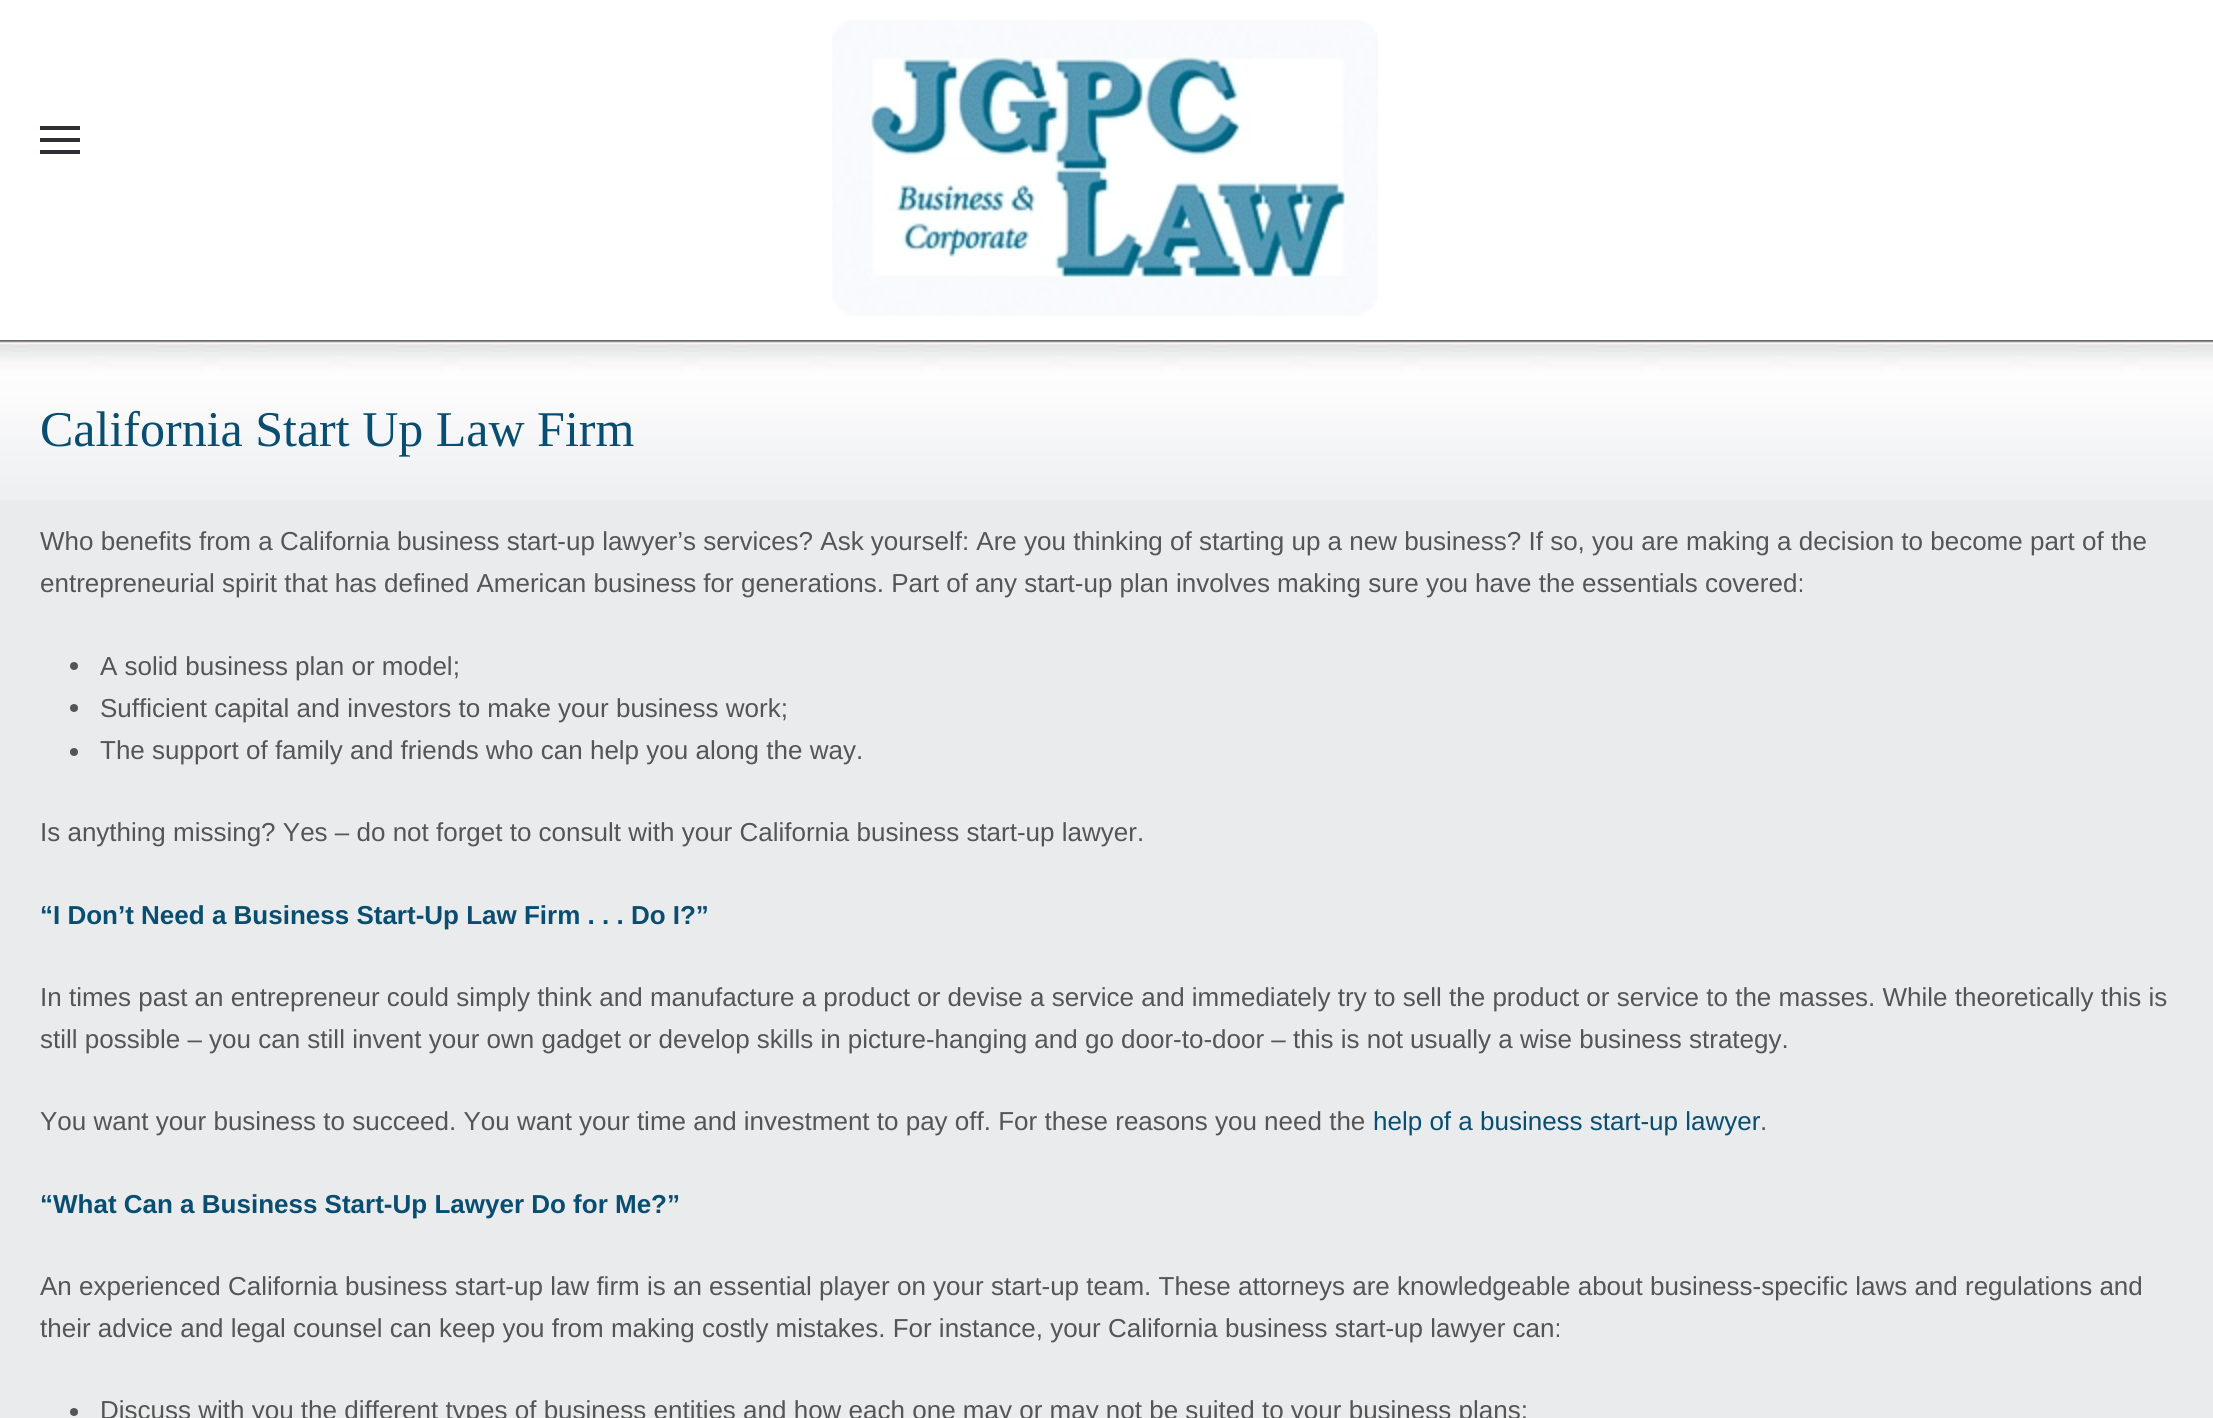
#include <cairo.h>
#include <math.h>
#include <stddef.h>


static void rgb(cairo_t *cr, int r, int g, int b)
{
	cairo_set_source_rgb(cr, r / 255.0, g / 255.0, b / 255.0);
}

static void face(cairo_t *cr, const char *family, double size, int italic, int bold)
{
	cairo_select_font_face(cr, family, italic ? CAIRO_FONT_SLANT_ITALIC : CAIRO_FONT_SLANT_NORMAL,
		bold ? CAIRO_FONT_WEIGHT_BOLD : CAIRO_FONT_WEIGHT_NORMAL);
	cairo_set_font_size(cr, size);
}

static void label(cairo_t *cr, double x, double y, const char *s)
{
	cairo_move_to(cr, x, y);
	cairo_show_text(cr, s);
}

static void rect(cairo_t *cr, double x, double y, double w, double h)
{
	cairo_rectangle(cr, x, y, w, h);
	cairo_fill(cr);
}

static void image(cairo_t *cr, const char *path, double x, double y, double w, double h)
{
	cairo_surface_t *image = cairo_image_surface_create_from_png(path);
	cairo_save(cr);
	cairo_set_source_surface(cr, image, x, y);
	cairo_rectangle(cr, x, y, w, h);
	cairo_fill(cr);
	cairo_restore(cr);
	cairo_surface_destroy(image);
}

static void draw(cairo_t *cr) {
	rgb(cr, 255, 255, 255);
	cairo_paint(cr);
	rgb(cr, 45, 46, 51);
	rect(cr, 40, 126, 40, 4);
	rect(cr, 40, 138, 40, 4);
	rect(cr, 40, 150, 40, 4);
	image(cr, "image0.png", 832, 20, 546, 296);
	rgb(cr, 234, 235, 237);
	rect(cr, 0, 500, 2213, 918);
	image(cr, "image1.png", 0, 340, 2213, 160);
	face(cr, "Liberation Serif", 50, 0, 0);
	rgb(cr, 9, 77, 113);
	label(cr, 40, 446, "California Start Up Law Firm");
	face(cr, "Liberation Sans", 26, 0, 0);
	rgb(cr, 85, 85, 85);
	label(cr, 40, 550, "Who benefits from a California business start-up lawyer’s services? Ask yourself: Are you thinking of starting up a new business? If so, you are making a decision to become part of the");
	label(cr, 40, 592, "entrepreneurial spirit that has defined American business for generations. Part of any start-up plan involves making sure you have the essentials covered:");
	cairo_new_path(cr);
	cairo_arc(cr, 74, 666, 4, 0, 2 * M_PI);
	cairo_fill(cr);
	label(cr, 100, 675, "A solid business plan or model;");
	cairo_new_path(cr);
	cairo_arc(cr, 74, 708, 4, 0, 2 * M_PI);
	cairo_fill(cr);
	label(cr, 100, 717, "Sufficient capital and investors to make your business work;");
	cairo_new_path(cr);
	cairo_arc(cr, 74, 752, 4, 0, 2 * M_PI);
	cairo_fill(cr);
	label(cr, 100, 759, "The support of family and friends who can help you along the way.");
	label(cr, 40, 841, "Is anything missing? Yes – do not forget to consult with your California business start-up lawyer.");
	face(cr, "Liberation Sans", 26, 0, 1);
	rgb(cr, 9, 77, 113);
	label(cr, 40, 924, "“I Don’t Need a Business Start-Up Law Firm . . . Do I?”");
	face(cr, "Liberation Sans", 26, 0, 0);
	rgb(cr, 85, 85, 85);
	label(cr, 40, 1006, "In times past an entrepreneur could simply think and manufacture a product or devise a service and immediately try to sell the product or service to the masses. While theoretically this is");
	label(cr, 40, 1048, "still possible – you can still invent your own gadget or develop skills in picture-hanging and go door-to-door – this is not usually a wise business strategy.");
	label(cr, 40, 1130, "You want your business to succeed. You want your time and investment to pay off. For these reasons you need the");
	rgb(cr, 9, 77, 113);
	label(cr, 1373, 1130, "help of a business start-up lawyer");
	rgb(cr, 85, 85, 85);
	label(cr, 1760, 1130, ".");
	face(cr, "Liberation Sans", 26, 0, 1);
	rgb(cr, 9, 77, 113);
	label(cr, 40, 1213, "“What Can a Business Start-Up Lawyer Do for Me?”");
	face(cr, "Liberation Sans", 26, 0, 0);
	rgb(cr, 85, 85, 85);
	label(cr, 40, 1295, "An experienced California business start-up law firm is an essential player on your start-up team. These attorneys are knowledgeable about business-specific laws and regulations and");
	label(cr, 40, 1337, "their advice and legal counsel can keep you from making costly mistakes. For instance, your California business start-up lawyer can:");
	cairo_new_path(cr);
	cairo_arc(cr, 74, 1412, 4, 0, 2 * M_PI);
	cairo_fill(cr);
	label(cr, 100, 1419, "Discuss with you the different types of business entities and how each one may or may not be suited to your business plans;");
}

int main(void) {
	cairo_surface_t *surface = cairo_image_surface_create(CAIRO_FORMAT_RGB24, 2213, 1418);
	cairo_t *cr = cairo_create(surface);
	cairo_font_options_t *options = cairo_font_options_create();
	cairo_font_options_set_hint_metrics(options, CAIRO_HINT_METRICS_OFF);
	cairo_font_options_set_hint_style(options, CAIRO_HINT_STYLE_NONE);
	cairo_set_font_options(cr, options);
	cairo_set_miter_limit(cr, 4);
	draw(cr);
	cairo_surface_write_to_png(surface, "render.png");
	cairo_font_options_destroy(options);
	cairo_destroy(cr);
	cairo_surface_destroy(surface);
	return 0;
}
